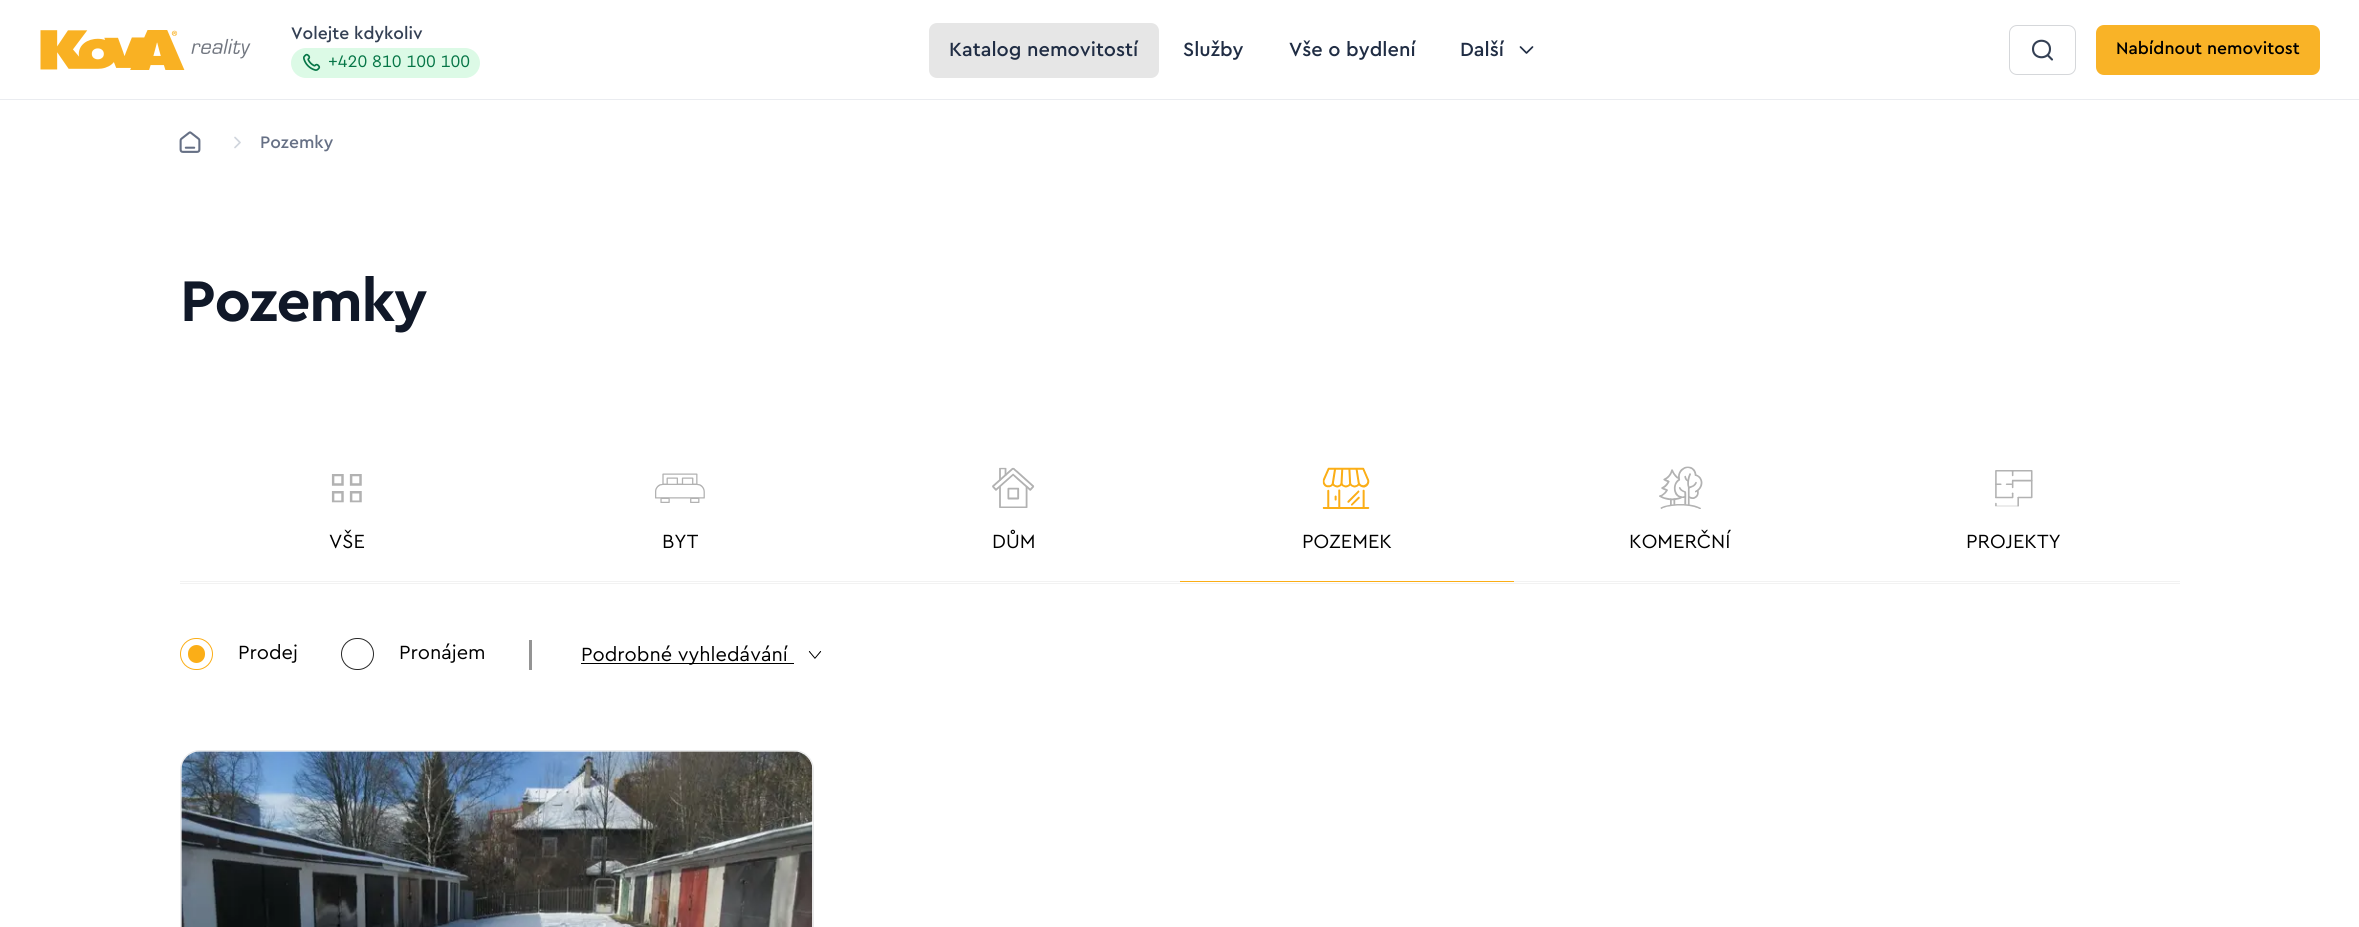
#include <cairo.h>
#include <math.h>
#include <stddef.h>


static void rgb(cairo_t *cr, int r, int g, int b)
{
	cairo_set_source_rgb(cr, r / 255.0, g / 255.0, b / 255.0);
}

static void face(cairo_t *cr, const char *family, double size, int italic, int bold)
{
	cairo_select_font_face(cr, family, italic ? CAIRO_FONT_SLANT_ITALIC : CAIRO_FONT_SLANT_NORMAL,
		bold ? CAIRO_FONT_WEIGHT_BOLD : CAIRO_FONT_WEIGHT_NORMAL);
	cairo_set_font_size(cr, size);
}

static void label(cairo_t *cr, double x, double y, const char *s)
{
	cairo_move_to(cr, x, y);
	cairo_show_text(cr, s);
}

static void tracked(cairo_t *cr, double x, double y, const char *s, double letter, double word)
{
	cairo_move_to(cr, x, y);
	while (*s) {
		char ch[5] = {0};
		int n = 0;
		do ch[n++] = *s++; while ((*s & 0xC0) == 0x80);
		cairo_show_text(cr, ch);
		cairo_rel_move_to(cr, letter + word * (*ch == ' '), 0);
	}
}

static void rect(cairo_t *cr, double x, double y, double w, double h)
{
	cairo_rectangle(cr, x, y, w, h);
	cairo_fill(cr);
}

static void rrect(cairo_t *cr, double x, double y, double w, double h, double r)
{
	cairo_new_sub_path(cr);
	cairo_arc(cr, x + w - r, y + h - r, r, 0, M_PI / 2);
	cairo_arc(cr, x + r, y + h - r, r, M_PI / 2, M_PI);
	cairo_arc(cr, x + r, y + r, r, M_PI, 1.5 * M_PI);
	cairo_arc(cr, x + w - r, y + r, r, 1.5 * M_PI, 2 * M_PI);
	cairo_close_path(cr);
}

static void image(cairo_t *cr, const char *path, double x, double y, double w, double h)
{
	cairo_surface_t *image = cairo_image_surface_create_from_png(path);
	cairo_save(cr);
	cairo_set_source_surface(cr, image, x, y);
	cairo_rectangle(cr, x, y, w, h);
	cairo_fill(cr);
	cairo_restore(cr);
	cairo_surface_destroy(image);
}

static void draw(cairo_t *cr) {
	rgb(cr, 255, 255, 255);
	cairo_paint(cr);
	rgb(cr, 234, 236, 240);
	rect(cr, 0, 99, 2359, 1);
	image(cr, "image0.png", 40, 30, 211, 40);
	face(cr, "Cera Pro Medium", 17.5, 0, 0);
	rgb(cr, 52, 64, 84);
	label(cr, 291, 39, "Volejte kdykoliv");
	rgb(cr, 220, 250, 230);
	rrect(cr, 291, 48, 189, 30, 15);
	cairo_fill(cr);
	image(cr, "image1.png", 303, 53, 18, 18);
	face(cr, "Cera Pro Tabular", 17.5, 0, 0);
	rgb(cr, 6, 118, 71);
	label(cr, 328, 67, "+420 810 100 100");
	rgb(cr, 230, 230, 230);
	rrect(cr, 929, 23, 230, 55, 8);
	cairo_fill(cr);
	face(cr, "Cera Pro Medium", 20, 0, 0);
	rgb(cr, 32, 45, 68);
	label(cr, 949, 56, "Katalog nemovitostí");
	label(cr, 1183, 56, "Služby");
	label(cr, 1289, 56, "Vše o bydlení");
	label(cr, 1460, 56, "Další");
	cairo_new_path(cr);
	cairo_move_to(cr, 1520.5, 47);
	cairo_line_to(cr, 1526.5, 53);
	cairo_line_to(cr, 1532.5, 47);
	cairo_set_line_width(cr, 1.7);
	cairo_set_line_cap(cr, CAIRO_LINE_CAP_ROUND);
	cairo_set_line_join(cr, CAIRO_LINE_JOIN_ROUND);
	cairo_stroke(cr);
	rrect(cr, 2009.5, 25.5, 66, 49, 7.5);
	rgb(cr, 213, 215, 218);
	cairo_set_line_width(cr, 1);
	cairo_set_line_cap(cr, CAIRO_LINE_CAP_BUTT);
	cairo_set_line_join(cr, CAIRO_LINE_JOIN_MITER);
	cairo_stroke(cr);
	cairo_new_path(cr);
	cairo_move_to(cr, 2052, 59.5);
	cairo_line_to(cr, 2047.5, 55);
	cairo_move_to(cr, 2050, 49);
	cairo_curve_to(cr, 2050, 60, 2033, 60, 2033, 49);
	cairo_curve_to(cr, 2033, 38, 2050, 38, 2050, 49);
	cairo_close_path(cr);
	rgb(cr, 52, 64, 84);
	cairo_set_line_width(cr, 2.1);
	cairo_set_line_cap(cr, CAIRO_LINE_CAP_ROUND);
	cairo_set_line_join(cr, CAIRO_LINE_JOIN_ROUND);
	cairo_stroke(cr);
	rgb(cr, 249, 179, 39);
	rrect(cr, 2096, 25, 224, 50, 8);
	cairo_fill(cr);
	face(cr, "Cera Pro Medium", 17.5, 0, 0);
	rgb(cr, 0, 0, 0);
	label(cr, 2116, 54, "Nabídnout nemovitost");
	image(cr, "image2.png", 179, 131, 22, 22);
	cairo_new_path(cr);
	cairo_move_to(cr, 235, 147.5);
	cairo_line_to(cr, 240, 142.5);
	cairo_line_to(cr, 235, 137.5);
	rgb(cr, 208, 213, 221);
	cairo_set_line_width(cr, 1.7);
	cairo_stroke(cr);
	rgb(cr, 102, 112, 133);
	label(cr, 260, 148, "Pozemky");
	face(cr, "Cera Pro", 60, 0, 1);
	rgb(cr, 16, 24, 40);
	tracked(cr, 180, 321, "Pozemky", -1.25, 0);
	rgb(cr, 242, 242, 242);
	rect(cr, 180, 581, 1000, 1);
	image(cr, "image3.png", 331, 474, 31, 29);
	face(cr, "Cera Pro", 20, 0, 0);
	rgb(cr, 0, 0, 0);
	label(cr, 329, 548, "VŠE");
	image(cr, "image4.png", 655, 473, 50, 30);
	label(cr, 662, 548, "BYT");
	image(cr, "image5.png", 992, 467, 43, 41);
	label(cr, 992, 548, "DŮM");
	rgb(cr, 251, 174, 23);
	rect(cr, 1180, 581, 334, 1);
	image(cr, "image6.png", 1322, 467, 48, 42);
	rgb(cr, 0, 0, 0);
	label(cr, 1302, 548, "POZEMEK");
	rgb(cr, 242, 242, 242);
	rect(cr, 1514, 581, 666, 1);
	image(cr, "image7.png", 1659, 466, 44, 43);
	rgb(cr, 0, 0, 0);
	label(cr, 1629, 548, "KOMERČNÍ");
	image(cr, "image8.png", 1995, 470, 38, 37);
	label(cr, 1966, 548, "PROJEKTY");
	rgb(cr, 242, 242, 242);
	rect(cr, 180, 583, 2000, 1);
	rrect(cr, 180.5, 638.5, 32, 31, 15.5);
	rgb(cr, 251, 174, 23);
	cairo_set_line_width(cr, 1);
	cairo_set_line_cap(cr, CAIRO_LINE_CAP_BUTT);
	cairo_set_line_join(cr, CAIRO_LINE_JOIN_MITER);
	cairo_stroke(cr);
	rrect(cr, 188, 645, 17, 18, 8.5);
	cairo_fill(cr);
	rgb(cr, 0, 0, 0);
	label(cr, 238, 659, "Prodej");
	rrect(cr, 341.5, 638.5, 32, 31, 15.5);
	rgb(cr, 40, 40, 40);
	cairo_stroke(cr);
	rgb(cr, 0, 0, 0);
	label(cr, 399, 659, "Pronájem");
	rgb(cr, 148, 148, 148);
	rect(cr, 529, 640, 3, 30);
	rgb(cr, 0, 0, 0);
	rect(cr, 581, 663, 213, 1);
	label(cr, 581, 661, "Podrobné vyhledávání");
	image(cr, "image9.png", 808, 651, 14, 8);
	rrect(cr, 180.5, 750.5, 633, 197, 19.5);
	rgb(cr, 233, 234, 235);
	cairo_stroke(cr);
	image(cr, "image10.png", 181, 751, 632, 176);
}

int main(void) {
	cairo_surface_t *surface = cairo_image_surface_create(CAIRO_FORMAT_RGB24, 2359, 927);
	cairo_t *cr = cairo_create(surface);
	cairo_font_options_t *options = cairo_font_options_create();
	cairo_font_options_set_hint_metrics(options, CAIRO_HINT_METRICS_OFF);
	cairo_font_options_set_hint_style(options, CAIRO_HINT_STYLE_NONE);
	cairo_set_font_options(cr, options);
	cairo_set_miter_limit(cr, 4);
	draw(cr);
	cairo_surface_write_to_png(surface, "render.png");
	cairo_font_options_destroy(options);
	cairo_destroy(cr);
	cairo_surface_destroy(surface);
	return 0;
}
